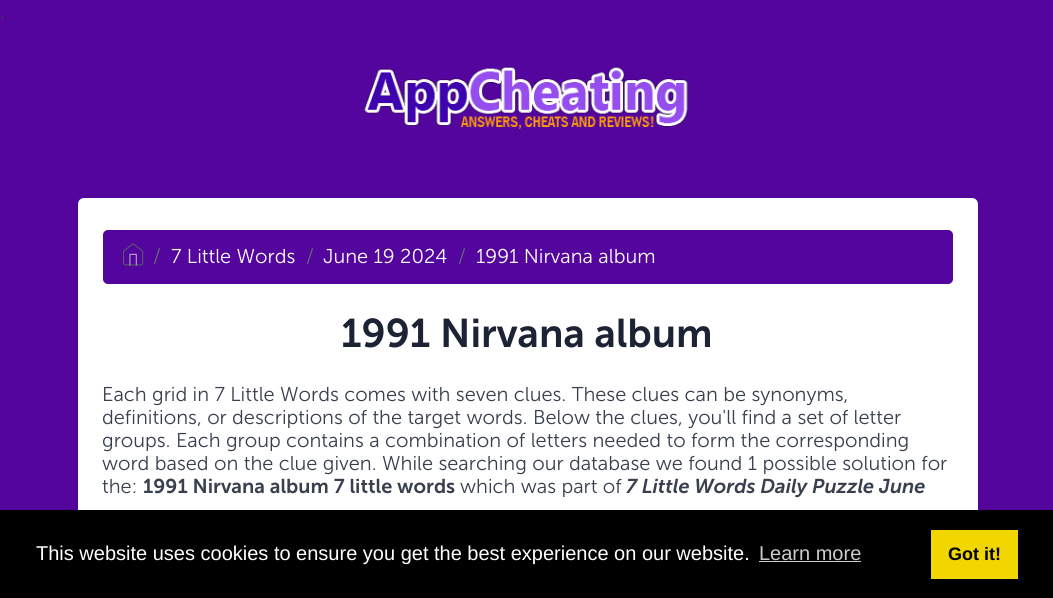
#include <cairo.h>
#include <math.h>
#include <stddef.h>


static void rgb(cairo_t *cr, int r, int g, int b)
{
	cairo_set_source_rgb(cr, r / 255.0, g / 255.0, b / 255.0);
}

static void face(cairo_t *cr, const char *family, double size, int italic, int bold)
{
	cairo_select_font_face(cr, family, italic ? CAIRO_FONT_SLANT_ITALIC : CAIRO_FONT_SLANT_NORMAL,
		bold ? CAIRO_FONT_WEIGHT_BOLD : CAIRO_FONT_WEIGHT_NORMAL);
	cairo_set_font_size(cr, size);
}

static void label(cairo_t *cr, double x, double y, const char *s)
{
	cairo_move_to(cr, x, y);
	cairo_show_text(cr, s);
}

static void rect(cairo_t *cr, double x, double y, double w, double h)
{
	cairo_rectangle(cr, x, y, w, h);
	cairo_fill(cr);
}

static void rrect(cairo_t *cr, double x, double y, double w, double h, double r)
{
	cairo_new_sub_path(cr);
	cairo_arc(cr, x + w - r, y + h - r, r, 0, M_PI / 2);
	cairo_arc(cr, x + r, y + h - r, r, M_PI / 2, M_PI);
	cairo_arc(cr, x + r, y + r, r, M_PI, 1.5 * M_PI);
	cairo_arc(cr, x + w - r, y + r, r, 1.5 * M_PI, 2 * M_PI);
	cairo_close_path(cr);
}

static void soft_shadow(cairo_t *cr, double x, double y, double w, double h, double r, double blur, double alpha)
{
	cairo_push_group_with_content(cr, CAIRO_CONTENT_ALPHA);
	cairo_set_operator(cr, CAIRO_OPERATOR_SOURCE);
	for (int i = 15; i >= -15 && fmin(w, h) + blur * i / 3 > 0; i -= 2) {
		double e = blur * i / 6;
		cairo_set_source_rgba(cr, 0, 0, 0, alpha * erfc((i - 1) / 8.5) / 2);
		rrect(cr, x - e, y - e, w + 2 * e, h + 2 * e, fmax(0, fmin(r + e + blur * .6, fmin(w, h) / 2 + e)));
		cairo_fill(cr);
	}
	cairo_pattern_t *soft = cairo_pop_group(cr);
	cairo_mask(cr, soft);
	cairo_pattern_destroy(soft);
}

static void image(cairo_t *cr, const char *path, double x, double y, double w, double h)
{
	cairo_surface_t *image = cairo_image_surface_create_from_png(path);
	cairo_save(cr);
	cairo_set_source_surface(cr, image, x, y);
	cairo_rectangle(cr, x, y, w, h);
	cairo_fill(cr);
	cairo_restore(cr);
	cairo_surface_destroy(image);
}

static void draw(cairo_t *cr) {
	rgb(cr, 84, 5, 157);
	cairo_paint(cr);
	face(cr, "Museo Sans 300 Light", 20, 0, 0);
	rgb(cr, 56, 63, 78);
	label(cr, 0, 18, ".");
	image(cr, "image0.png", 363, 66, 326, 63);
	rgb(cr, 0, 0, 0);
	soft_shadow(cr, 78, 199, 900, 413, 6, 2.5, 0.1);
	rgb(cr, 255, 255, 255);
	rrect(cr, 78, 198, 900, 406, 6);
	cairo_fill(cr);
	rgb(cr, 84, 5, 157);
	rrect(cr, 103, 230, 850, 54, 5);
	cairo_fill(cr);
	image(cr, "image1.png", 123, 243, 21, 23);
	rgb(cr, 99, 108, 114);
	label(cr, 153, 263, "/");
	rgb(cr, 255, 255, 255);
	label(cr, 171, 263, "7 Little Words");
	rgb(cr, 99, 108, 114);
	label(cr, 306, 263, "/");
	rgb(cr, 255, 255, 255);
	label(cr, 323, 263, "June 19 2024");
	rgb(cr, 99, 108, 114);
	label(cr, 458, 263, "/");
	rgb(cr, 255, 255, 255);
	label(cr, 476, 263, "1991 Nirvana album");
	face(cr, "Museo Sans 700 SemiBold", 40, 0, 0);
	rgb(cr, 28, 35, 52);
	label(cr, 341, 347, "1991 Nirvana album");
	face(cr, "Museo Sans 300 Light", 20, 0, 0);
	rgb(cr, 56, 63, 78);
	label(cr, 102, 401, "Each grid in 7 Little Words comes with seven clues. These clues can be synonyms,");
	label(cr, 102, 424, "definitions, or descriptions of the target words. Below the clues, you'll find a set of letter");
	label(cr, 102, 447, "groups. Each group contains a combination of letters needed to form the corresponding");
	label(cr, 102, 470, "word based on the clue given. While searching our database we found 1 possible solution for");
	label(cr, 102, 493, "the:");
	face(cr, "Museo Sans 700 SemiBold", 20, 0, 0);
	label(cr, 143, 493, "1991 Nirvana album 7 little words");
	face(cr, "Museo Sans 300 Light", 20, 0, 0);
	label(cr, 460, 493, "which was part of");
	face(cr, "Museo Sans 700 SemiBold", 20, 1, 0);
	label(cr, 626, 493, "7 Little Words Daily Puzzle June");
	rgb(cr, 0, 0, 0);
	rect(cr, 0, 510, 1053, 88);
	face(cr, "Liberation Sans", 20, 0, 0);
	rgb(cr, 255, 255, 255);
	label(cr, 36, 560, "This website uses cookies to ensure you get the best experience on our website.");
	rgb(cr, 204, 204, 204);
	label(cr, 759, 560, "Learn more");
	rect(cr, 759, 561, 102, 1);
	rgb(cr, 241, 214, 0);
	rect(cr, 931, 530, 87, 49);
	face(cr, "Liberation Sans", 18, 0, 1);
	rgb(cr, 0, 0, 0);
	label(cr, 948, 560, "Got it!");
}

int main(void) {
	cairo_surface_t *surface = cairo_image_surface_create(CAIRO_FORMAT_RGB24, 1053, 598);
	cairo_t *cr = cairo_create(surface);
	cairo_font_options_t *options = cairo_font_options_create();
	cairo_font_options_set_hint_metrics(options, CAIRO_HINT_METRICS_OFF);
	cairo_font_options_set_hint_style(options, CAIRO_HINT_STYLE_NONE);
	cairo_set_font_options(cr, options);
	cairo_set_miter_limit(cr, 4);
	draw(cr);
	cairo_surface_write_to_png(surface, "render.png");
	cairo_font_options_destroy(options);
	cairo_destroy(cr);
	cairo_surface_destroy(surface);
	return 0;
}
